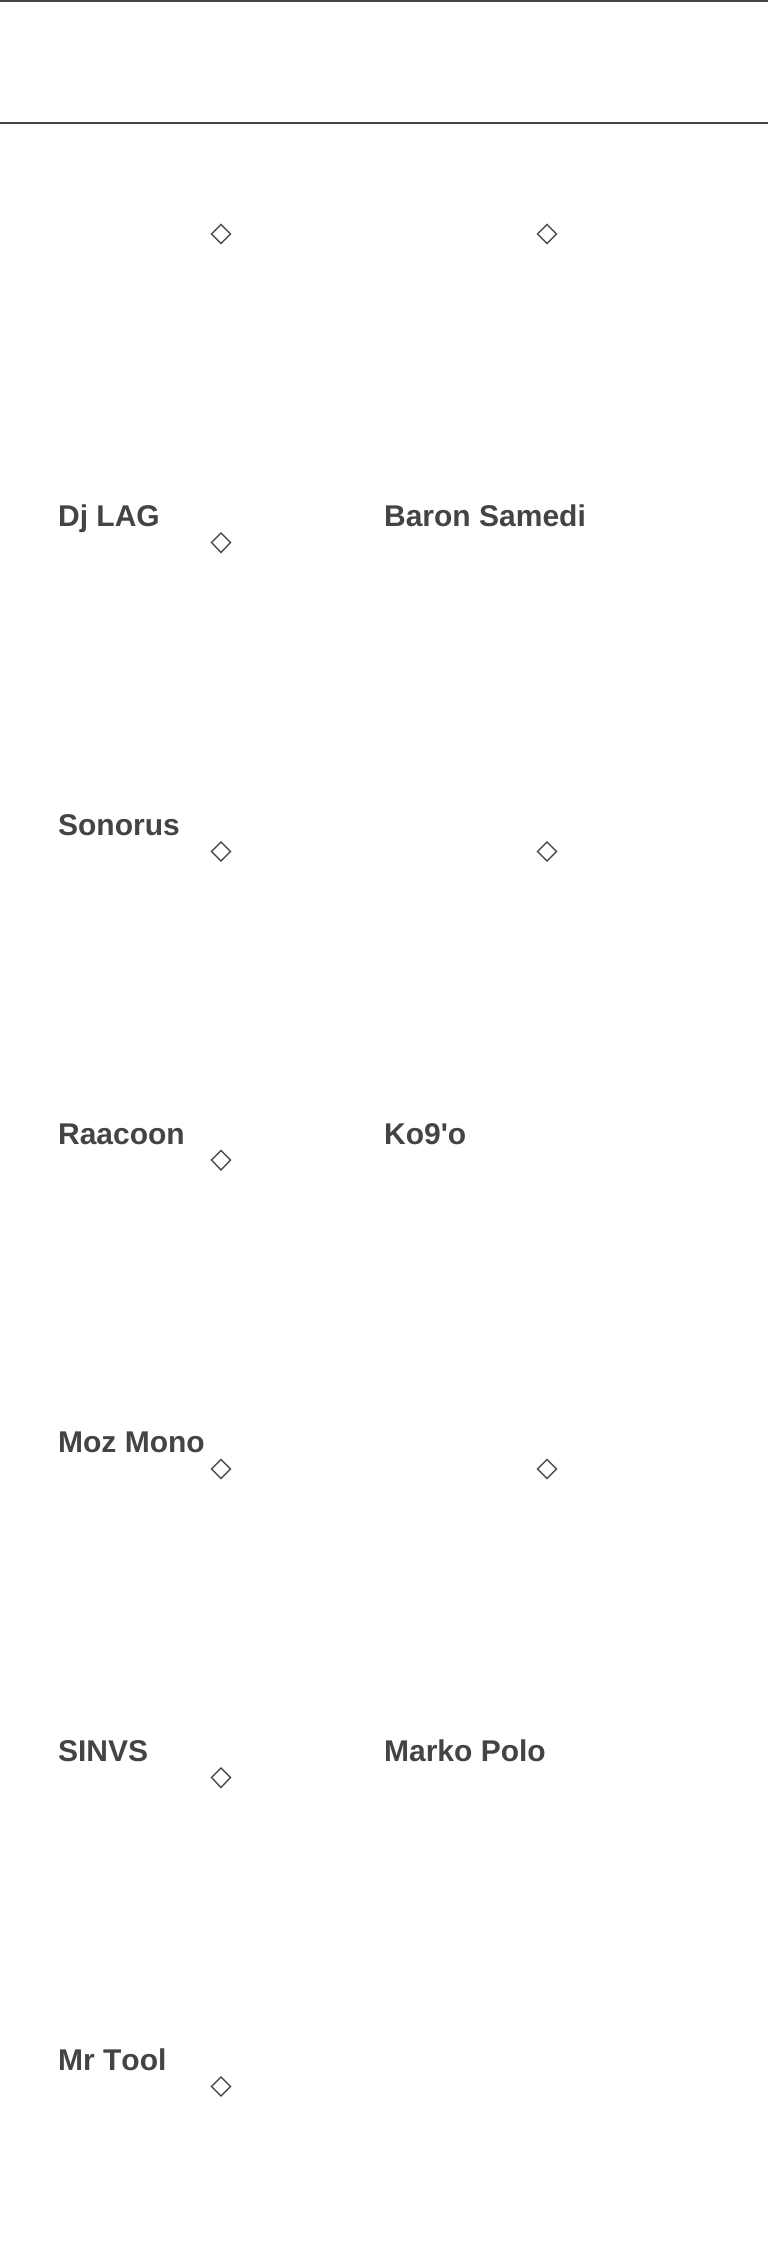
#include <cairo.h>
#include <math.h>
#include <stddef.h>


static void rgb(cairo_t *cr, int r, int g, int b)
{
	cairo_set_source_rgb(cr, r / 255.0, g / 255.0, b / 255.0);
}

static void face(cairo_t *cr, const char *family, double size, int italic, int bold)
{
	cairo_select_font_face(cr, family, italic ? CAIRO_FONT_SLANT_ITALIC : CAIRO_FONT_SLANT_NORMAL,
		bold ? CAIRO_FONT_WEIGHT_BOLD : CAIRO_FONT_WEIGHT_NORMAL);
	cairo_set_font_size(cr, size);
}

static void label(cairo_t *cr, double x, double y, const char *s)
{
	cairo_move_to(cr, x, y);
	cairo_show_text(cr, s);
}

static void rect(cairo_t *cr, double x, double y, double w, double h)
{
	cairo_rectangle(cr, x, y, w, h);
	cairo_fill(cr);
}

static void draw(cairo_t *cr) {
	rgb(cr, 255, 255, 255);
	cairo_paint(cr);
	rgb(cr, 68, 68, 68);
	rect(cr, 0, 0, 768, 2);
	rect(cr, 0, 122, 768, 2);
	cairo_new_path(cr);
	cairo_move_to(cr, 221, 224.5);
	cairo_line_to(cr, 230.5, 234);
	cairo_line_to(cr, 221, 243.5);
	cairo_line_to(cr, 211.5, 234);
	cairo_close_path(cr);
	cairo_set_line_width(cr, 1.5);
	cairo_stroke(cr);
	face(cr, "Liberation Sans", 30, 0, 1);
	label(cr, 58, 526, "Dj LAG");
	cairo_new_path(cr);
	cairo_move_to(cr, 547, 224.5);
	cairo_line_to(cr, 556.5, 234);
	cairo_line_to(cr, 547, 243.5);
	cairo_line_to(cr, 537.5, 234);
	cairo_close_path(cr);
	cairo_stroke(cr);
	label(cr, 384, 526, "Baron Samedi");
	cairo_new_path(cr);
	cairo_move_to(cr, 221, 533);
	cairo_line_to(cr, 230.5, 542.5);
	cairo_line_to(cr, 221, 552.5);
	cairo_line_to(cr, 211.5, 542.5);
	cairo_close_path(cr);
	cairo_stroke(cr);
	label(cr, 58, 835, "Sonorus");
	cairo_new_path(cr);
	cairo_move_to(cr, 221, 842);
	cairo_line_to(cr, 230.5, 851.5);
	cairo_line_to(cr, 221, 861);
	cairo_line_to(cr, 211.5, 851.5);
	cairo_close_path(cr);
	cairo_stroke(cr);
	label(cr, 58, 1144, "Raacoon");
	cairo_new_path(cr);
	cairo_move_to(cr, 547, 842);
	cairo_line_to(cr, 556.5, 851.5);
	cairo_line_to(cr, 547, 861);
	cairo_line_to(cr, 537.5, 851.5);
	cairo_close_path(cr);
	cairo_stroke(cr);
	label(cr, 384, 1144, "Ko9'o");
	cairo_new_path(cr);
	cairo_move_to(cr, 221, 1150.5);
	cairo_line_to(cr, 230.5, 1160);
	cairo_line_to(cr, 221, 1170);
	cairo_line_to(cr, 211.5, 1160);
	cairo_close_path(cr);
	cairo_stroke(cr);
	label(cr, 58, 1452, "Moz Mono");
	cairo_new_path(cr);
	cairo_move_to(cr, 221, 1459.5);
	cairo_line_to(cr, 230.5, 1469);
	cairo_line_to(cr, 221, 1478.5);
	cairo_line_to(cr, 211.5, 1469);
	cairo_close_path(cr);
	cairo_stroke(cr);
	label(cr, 58, 1761, "SINVS");
	cairo_new_path(cr);
	cairo_move_to(cr, 547, 1459.5);
	cairo_line_to(cr, 556.5, 1469);
	cairo_line_to(cr, 547, 1478.5);
	cairo_line_to(cr, 537.5, 1469);
	cairo_close_path(cr);
	cairo_stroke(cr);
	label(cr, 384, 1761, "Marko Polo");
	cairo_new_path(cr);
	cairo_move_to(cr, 221, 1768);
	cairo_line_to(cr, 230.5, 1777.5);
	cairo_line_to(cr, 221, 1787.5);
	cairo_line_to(cr, 211.5, 1777.5);
	cairo_close_path(cr);
	cairo_stroke(cr);
	label(cr, 58, 2070, "Mr Tool");
	cairo_new_path(cr);
	cairo_move_to(cr, 221, 2077);
	cairo_line_to(cr, 230.5, 2086.5);
	cairo_line_to(cr, 221, 2096);
	cairo_line_to(cr, 211.5, 2086.5);
	cairo_close_path(cr);
	cairo_stroke(cr);
}

int main(void) {
	cairo_surface_t *surface = cairo_image_surface_create(CAIRO_FORMAT_RGB24, 768, 2268);
	cairo_t *cr = cairo_create(surface);
	cairo_font_options_t *options = cairo_font_options_create();
	cairo_font_options_set_hint_metrics(options, CAIRO_HINT_METRICS_OFF);
	cairo_font_options_set_hint_style(options, CAIRO_HINT_STYLE_NONE);
	cairo_set_font_options(cr, options);
	cairo_set_miter_limit(cr, 4);
	draw(cr);
	cairo_surface_write_to_png(surface, "render.png");
	cairo_font_options_destroy(options);
	cairo_destroy(cr);
	cairo_surface_destroy(surface);
	return 0;
}
